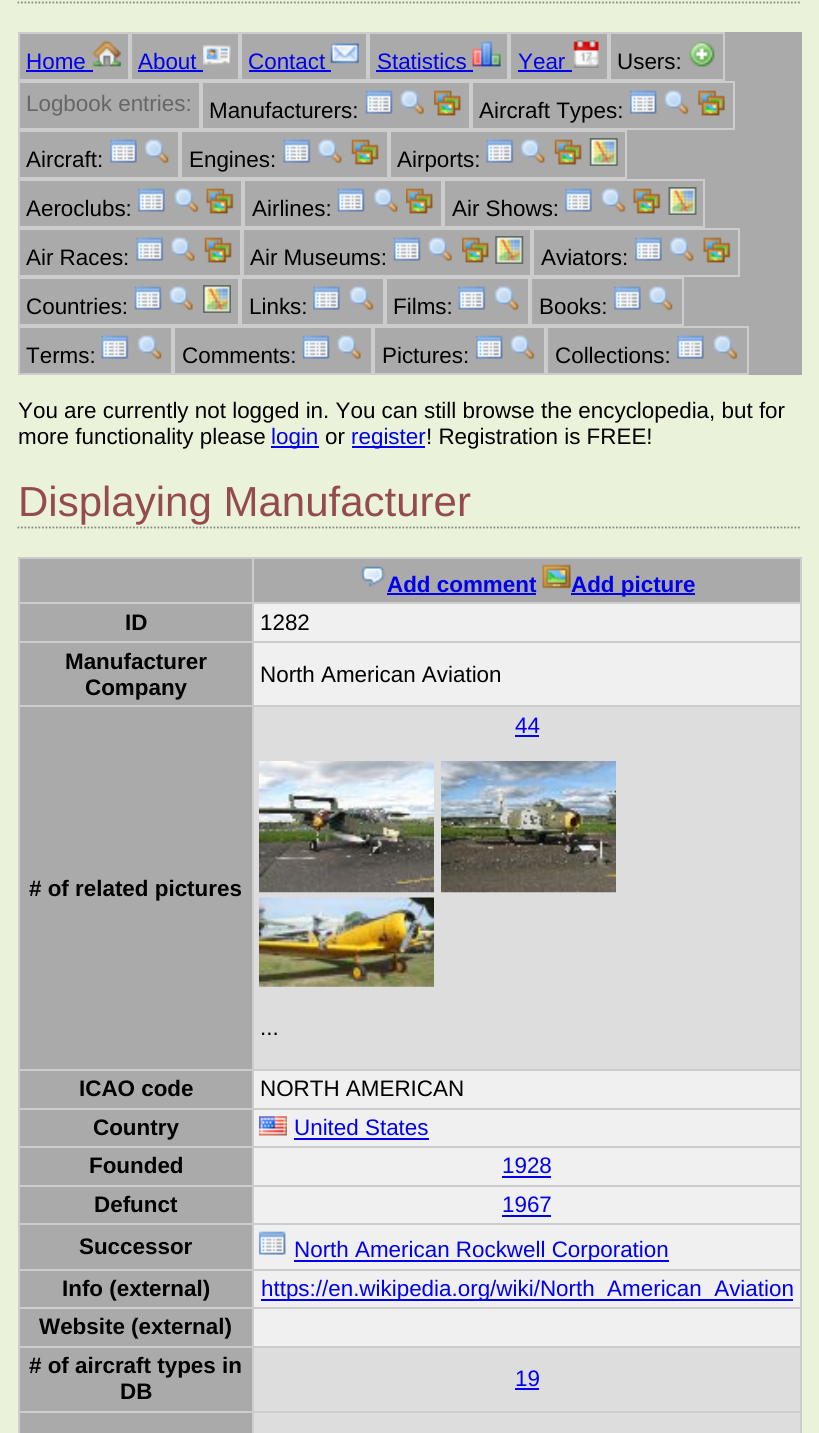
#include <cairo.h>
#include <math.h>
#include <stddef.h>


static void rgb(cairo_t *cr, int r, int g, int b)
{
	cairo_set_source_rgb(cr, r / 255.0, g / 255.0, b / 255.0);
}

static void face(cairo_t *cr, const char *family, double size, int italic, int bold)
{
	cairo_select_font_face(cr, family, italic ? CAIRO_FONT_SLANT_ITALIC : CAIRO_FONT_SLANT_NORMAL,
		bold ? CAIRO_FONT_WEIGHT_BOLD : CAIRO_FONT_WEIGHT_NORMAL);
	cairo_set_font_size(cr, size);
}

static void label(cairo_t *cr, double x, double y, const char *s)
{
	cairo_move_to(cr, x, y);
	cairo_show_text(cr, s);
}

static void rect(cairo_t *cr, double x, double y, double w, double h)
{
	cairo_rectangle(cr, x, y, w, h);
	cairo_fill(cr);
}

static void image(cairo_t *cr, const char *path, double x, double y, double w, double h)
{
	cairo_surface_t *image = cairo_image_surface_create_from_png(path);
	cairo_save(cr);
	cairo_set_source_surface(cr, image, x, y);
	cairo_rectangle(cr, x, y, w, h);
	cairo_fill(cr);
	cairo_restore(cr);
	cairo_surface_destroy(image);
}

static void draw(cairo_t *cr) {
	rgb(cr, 234, 243, 218);
	cairo_paint(cr);
	cairo_new_path(cr);
	cairo_move_to(cr, 17.5, 2.5);
	cairo_line_to(cr, 801.5, 2.5);
	rgb(cr, 136, 136, 136);
	cairo_set_line_width(cr, 1.8);
	cairo_set_dash(cr, (double[]){1.75, 1.75}, 2, 0);
	cairo_stroke(cr);
	rgb(cr, 170, 170, 170);
	rect(cr, 20, 32, 782, 343);
	cairo_rectangle(cr, 19, 33, 110, 47);
	rgb(cr, 204, 204, 204);
	cairo_set_line_width(cr, 2);
	cairo_set_dash(cr, NULL, 0, 0);
	cairo_stroke(cr);
	face(cr, "Liberation Sans", 22.4, 0, 0);
	rgb(cr, 0, 0, 238);
	label(cr, 26, 69, "Home");
	rect(cr, 26, 70, 67, 2);
	image(cr, "image0.png", 92, 40, 29, 27);
	cairo_rectangle(cr, 131, 33, 108, 47);
	rgb(cr, 204, 204, 204);
	cairo_stroke(cr);
	rgb(cr, 0, 0, 238);
	label(cr, 138, 69, "About");
	rect(cr, 138, 70, 65, 2);
	image(cr, "image1.png", 203, 45, 28, 20);
	cairo_rectangle(cr, 241, 33, 126, 47);
	rgb(cr, 204, 204, 204);
	cairo_stroke(cr);
	rgb(cr, 0, 0, 238);
	label(cr, 248, 69, "Contact");
	rect(cr, 249, 70, 82, 2);
	image(cr, "image2.png", 330, 43, 29, 21);
	cairo_rectangle(cr, 369, 33, 139, 47);
	rgb(cr, 204, 204, 204);
	cairo_stroke(cr);
	rgb(cr, 0, 0, 238);
	label(cr, 377, 69, "Statistics");
	rect(cr, 376, 70, 97, 2);
	image(cr, "image3.png", 472, 41, 29, 26);
	cairo_rectangle(cr, 510, 33, 98, 47);
	rgb(cr, 204, 204, 204);
	cairo_stroke(cr);
	rgb(cr, 0, 0, 238);
	label(cr, 518, 69, "Year");
	rect(cr, 518, 70, 54, 2);
	image(cr, "image4.png", 573, 40, 26, 28);
	cairo_rectangle(cr, 610, 33, 114, 47);
	rgb(cr, 204, 204, 204);
	cairo_stroke(cr);
	rgb(cr, 0, 0, 0);
	label(cr, 617, 69, "Users:");
	image(cr, "image5.png", 689, 41, 26, 26);
	cairo_rectangle(cr, 19, 82, 181, 47);
	rgb(cr, 204, 204, 204);
	cairo_stroke(cr);
	rgb(cr, 102, 102, 102);
	label(cr, 26, 111, "Logbook entries:");
	cairo_rectangle(cr, 202, 82, 268, 47);
	rgb(cr, 204, 204, 204);
	cairo_stroke(cr);
	rgb(cr, 0, 0, 0);
	label(cr, 209, 118, "Manufacturers:");
	image(cr, "image6.png", 365, 90, 28, 24);
	image(cr, "image7.png", 400, 90, 24, 26);
	image(cr, "image8.png", 434, 90, 27, 26);
	cairo_rectangle(cr, 472, 82, 262, 47);
	rgb(cr, 204, 204, 204);
	cairo_stroke(cr);
	rgb(cr, 0, 0, 0);
	label(cr, 479, 118, "Aircraft Types:");
	image(cr, "image9.png", 630, 90, 27, 24);
	image(cr, "image10.png", 664, 90, 25, 26);
	image(cr, "image11.png", 698, 90, 27, 26);
	cairo_rectangle(cr, 19, 131, 160, 47);
	rgb(cr, 204, 204, 204);
	cairo_stroke(cr);
	rgb(cr, 0, 0, 0);
	label(cr, 26, 167, "Aircraft:");
	image(cr, "image12.png", 110, 139, 27, 24);
	image(cr, "image13.png", 144, 139, 25, 26);
	cairo_rectangle(cr, 181, 131, 207, 47);
	rgb(cr, 204, 204, 204);
	cairo_stroke(cr);
	rgb(cr, 0, 0, 0);
	label(cr, 189, 167, "Engines:");
	image(cr, "image14.png", 283, 139, 28, 24);
	image(cr, "image15.png", 318, 139, 24, 26);
	image(cr, "image16.png", 351, 139, 28, 26);
	cairo_rectangle(cr, 390, 131, 236, 47);
	rgb(cr, 204, 204, 204);
	cairo_stroke(cr);
	rgb(cr, 0, 0, 0);
	label(cr, 397, 167, "Airports:");
	image(cr, "image17.png", 486, 139, 28, 24);
	image(cr, "image15.png", 521, 139, 24, 26);
	image(cr, "image18.png", 554, 139, 28, 26);
	image(cr, "image19.png", 589, 138, 29, 28);
	cairo_rectangle(cr, 19, 180, 223, 47);
	rgb(cr, 204, 204, 204);
	cairo_stroke(cr);
	rgb(cr, 0, 0, 0);
	label(cr, 26, 216, "Aeroclubs:");
	image(cr, "image20.png", 138, 188, 27, 24);
	image(cr, "image21.png", 174, 188, 25, 26);
	image(cr, "image22.png", 206, 188, 28, 26);
	cairo_rectangle(cr, 244, 180, 198, 47);
	rgb(cr, 204, 204, 204);
	cairo_stroke(cr);
	rgb(cr, 0, 0, 0);
	label(cr, 252, 216, "Airlines:");
	image(cr, "image6.png", 337, 188, 28, 24);
	image(cr, "image15.png", 374, 188, 24, 26);
	image(cr, "image8.png", 406, 188, 27, 26);
	cairo_rectangle(cr, 444, 180, 260, 47);
	rgb(cr, 204, 204, 204);
	cairo_stroke(cr);
	rgb(cr, 0, 0, 0);
	label(cr, 452, 216, "Air Shows:");
	image(cr, "image20.png", 565, 188, 27, 24);
	image(cr, "image10.png", 601, 188, 25, 26);
	image(cr, "image23.png", 633, 188, 28, 26);
	image(cr, "image24.png", 668, 187, 29, 28);
	cairo_rectangle(cr, 19, 229, 222, 47);
	rgb(cr, 204, 204, 204);
	cairo_stroke(cr);
	rgb(cr, 0, 0, 0);
	label(cr, 26, 265, "Air Races:");
	image(cr, "image25.png", 136, 237, 28, 24);
	image(cr, "image26.png", 171, 237, 24, 26);
	image(cr, "image16.png", 204, 237, 28, 26);
	cairo_rectangle(cr, 243, 229, 288, 47);
	rgb(cr, 204, 204, 204);
	cairo_stroke(cr);
	rgb(cr, 0, 0, 0);
	label(cr, 250, 265, "Air Museums:");
	image(cr, "image6.png", 393, 237, 28, 24);
	image(cr, "image7.png", 428, 237, 24, 26);
	image(cr, "image8.png", 462, 237, 27, 26);
	image(cr, "image27.png", 495, 236, 29, 28);
	cairo_rectangle(cr, 533, 229, 206, 47);
	rgb(cr, 204, 204, 204);
	cairo_stroke(cr);
	rgb(cr, 0, 0, 0);
	label(cr, 541, 265, "Aviators:");
	image(cr, "image20.png", 635, 237, 27, 24);
	image(cr, "image13.png", 669, 237, 25, 26);
	image(cr, "image22.png", 703, 237, 28, 26);
	cairo_rectangle(cr, 19, 278, 220, 47);
	rgb(cr, 204, 204, 204);
	cairo_stroke(cr);
	rgb(cr, 0, 0, 0);
	label(cr, 26, 314, "Countries:");
	image(cr, "image6.png", 134, 286, 28, 24);
	image(cr, "image7.png", 169, 286, 24, 26);
	image(cr, "image28.png", 203, 285, 28, 28);
	cairo_rectangle(cr, 241, 278, 143, 47);
	rgb(cr, 204, 204, 204);
	cairo_stroke(cr);
	rgb(cr, 0, 0, 0);
	label(cr, 249, 314, "Links:");
	image(cr, "image20.png", 313, 286, 27, 24);
	image(cr, "image10.png", 349, 286, 25, 26);
	cairo_rectangle(cr, 386, 278, 143, 47);
	rgb(cr, 204, 204, 204);
	cairo_stroke(cr);
	rgb(cr, 0, 0, 0);
	label(cr, 393, 314, "Films:");
	image(cr, "image17.png", 458, 286, 28, 24);
	image(cr, "image29.png", 494, 286, 25, 26);
	cairo_rectangle(cr, 531, 278, 152, 47);
	rgb(cr, 204, 204, 204);
	cairo_stroke(cr);
	rgb(cr, 0, 0, 0);
	label(cr, 539, 314, "Books:");
	image(cr, "image20.png", 614, 286, 27, 24);
	image(cr, "image13.png", 648, 286, 25, 26);
	cairo_rectangle(cr, 19, 327, 153, 47);
	rgb(cr, 204, 204, 204);
	cairo_stroke(cr);
	rgb(cr, 0, 0, 0);
	label(cr, 26, 363, "Terms:");
	image(cr, "image17.png", 101, 335, 28, 24);
	image(cr, "image13.png", 137, 335, 25, 26);
	cairo_rectangle(cr, 174, 327, 198, 47);
	rgb(cr, 204, 204, 204);
	cairo_stroke(cr);
	rgb(cr, 0, 0, 0);
	label(cr, 182, 363, "Comments:");
	image(cr, "image6.png", 302, 335, 28, 24);
	image(cr, "image30.png", 337, 335, 24, 26);
	cairo_rectangle(cr, 374, 327, 171, 47);
	rgb(cr, 204, 204, 204);
	cairo_stroke(cr);
	rgb(cr, 0, 0, 0);
	label(cr, 382, 363, "Pictures:");
	image(cr, "image9.png", 476, 335, 27, 24);
	image(cr, "image10.png", 510, 335, 25, 26);
	cairo_rectangle(cr, 547, 327, 201, 47);
	rgb(cr, 204, 204, 204);
	cairo_stroke(cr);
	rgb(cr, 0, 0, 0);
	label(cr, 555, 363, "Collections:");
	image(cr, "image20.png", 677, 335, 27, 24);
	image(cr, "image21.png", 713, 335, 25, 26);
	label(cr, 18, 418, "You are currently not logged in. You can still browse the encyclopedia, but for");
	label(cr, 18, 444, "more functionality please");
	rgb(cr, 0, 0, 238);
	rect(cr, 271, 446, 48, 2);
	label(cr, 271, 444, "login");
	rgb(cr, 0, 0, 0);
	label(cr, 325, 444, "or");
	rgb(cr, 0, 0, 238);
	rect(cr, 352, 446, 73, 2);
	label(cr, 351, 444, "register");
	rgb(cr, 0, 0, 0);
	label(cr, 426, 444, "! Registration is FREE!");
	cairo_new_path(cr);
	cairo_move_to(cr, 17.5, 527.5);
	cairo_line_to(cr, 801.5, 527.5);
	rgb(cr, 136, 136, 136);
	cairo_set_line_width(cr, 1.8);
	cairo_set_dash(cr, (double[]){1.75, 1.75}, 2, 0);
	cairo_stroke(cr);
	face(cr, "Liberation Sans", 42, 0, 0);
	rgb(cr, 149, 75, 75);
	label(cr, 18, 516, "Displaying Manufacturer");
	rgb(cr, 240, 240, 240);
	rect(cr, 254, 604, 546, 742);
	rgb(cr, 204, 204, 204);
	rect(cr, 18, 557, 784, 2);
	rect(cr, 800, 557, 2, 876);
	rect(cr, 18, 557, 2, 876);
	rgb(cr, 170, 170, 170);
	rect(cr, 20, 559, 232, 43);
	rect(cr, 254, 559, 546, 43);
	rgb(cr, 204, 204, 204);
	rect(cr, 252, 602, 550, 2);
	rect(cr, 252, 641, 550, 2);
	rect(cr, 252, 705, 550, 2);
	rect(cr, 252, 1069, 550, 2);
	rect(cr, 252, 1108, 550, 2);
	rect(cr, 252, 1146, 550, 2);
	rect(cr, 252, 1185, 550, 2);
	rect(cr, 252, 1223, 550, 2);
	rect(cr, 252, 1269, 550, 2);
	rect(cr, 252, 1307, 550, 2);
	rect(cr, 252, 1346, 550, 2);
	rect(cr, 252, 1411, 550, 2);
	rect(cr, 252, 1411, 2, 22);
	rect(cr, 18, 1411, 236, 2);
	rect(cr, 252, 1346, 2, 66);
	rect(cr, 18, 1346, 236, 2);
	rect(cr, 252, 1307, 2, 41);
	rect(cr, 18, 1307, 236, 2);
	rect(cr, 252, 1269, 2, 40);
	rect(cr, 18, 1269, 236, 2);
	rect(cr, 252, 1223, 2, 48);
	rect(cr, 18, 1223, 236, 2);
	rect(cr, 252, 1185, 2, 40);
	rect(cr, 18, 1185, 236, 2);
	rect(cr, 252, 1146, 2, 41);
	rect(cr, 18, 1146, 236, 2);
	rect(cr, 252, 1108, 2, 40);
	rect(cr, 18, 1108, 236, 2);
	rect(cr, 252, 1069, 2, 41);
	rect(cr, 18, 1069, 236, 2);
	rect(cr, 252, 705, 2, 366);
	rect(cr, 18, 705, 236, 2);
	rect(cr, 252, 641, 2, 66);
	rect(cr, 18, 641, 236, 2);
	rect(cr, 252, 602, 2, 40);
	rect(cr, 18, 602, 236, 2);
	rect(cr, 252, 557, 2, 47);
	image(cr, "image31.png", 360, 566, 26, 21);
	face(cr, "Liberation Sans", 22.4, 0, 1);
	rgb(cr, 0, 0, 238);
	label(cr, 387, 592, "Add comment");
	rect(cr, 387, 593, 149, 2);
	image(cr, "image32.png", 542, 564, 29, 25);
	rect(cr, 571, 593, 124, 2);
	label(cr, 571, 592, "Add picture");
	rgb(cr, 170, 170, 170);
	rect(cr, 20, 604, 232, 37);
	rgb(cr, 0, 0, 0);
	label(cr, 125, 630, "ID");
	face(cr, "Liberation Sans", 22.4, 0, 0);
	label(cr, 260, 630, "1282");
	rgb(cr, 170, 170, 170);
	rect(cr, 20, 643, 232, 62);
	face(cr, "Liberation Sans", 22.4, 0, 1);
	rgb(cr, 0, 0, 0);
	label(cr, 65, 669, "Manufacturer");
	label(cr, 85, 695, "Company");
	face(cr, "Liberation Sans", 22.4, 0, 0);
	label(cr, 260, 682, "North American Aviation");
	rgb(cr, 170, 170, 170);
	rect(cr, 20, 707, 232, 362);
	face(cr, "Liberation Sans", 22.4, 0, 1);
	rgb(cr, 0, 0, 0);
	label(cr, 29, 896, "# of related pictures");
	rgb(cr, 221, 221, 221);
	rect(cr, 254, 707, 546, 362);
	face(cr, "Liberation Sans", 22.4, 0, 0);
	rgb(cr, 0, 0, 238);
	label(cr, 515, 733, "44");
	rect(cr, 515, 735, 24, 2);
	image(cr, "image33.png", 259, 761, 175, 132);
	image(cr, "image34.png", 441, 761, 175, 132);
	image(cr, "image35.png", 259, 897, 175, 90);
	rgb(cr, 0, 0, 0);
	label(cr, 260, 1035, "...");
	rgb(cr, 170, 170, 170);
	rect(cr, 20, 1071, 232, 37);
	face(cr, "Liberation Sans", 22.4, 0, 1);
	rgb(cr, 0, 0, 0);
	label(cr, 79, 1096, "ICAO code");
	face(cr, "Liberation Sans", 22.4, 0, 0);
	label(cr, 260, 1096, "NORTH AMERICAN");
	rgb(cr, 170, 170, 170);
	rect(cr, 20, 1110, 232, 36);
	face(cr, "Liberation Sans", 22.4, 0, 1);
	rgb(cr, 0, 0, 0);
	label(cr, 93, 1135, "Country");
	image(cr, "image36.png", 259, 1116, 28, 20);
	face(cr, "Liberation Sans", 22.4, 0, 0);
	rgb(cr, 0, 0, 238);
	label(cr, 294, 1135, "United States");
	rect(cr, 294, 1138, 135, 2);
	rgb(cr, 170, 170, 170);
	rect(cr, 20, 1148, 232, 37);
	face(cr, "Liberation Sans", 22.4, 0, 1);
	rgb(cr, 0, 0, 0);
	label(cr, 89, 1173, "Founded");
	face(cr, "Liberation Sans", 22.4, 0, 0);
	rgb(cr, 0, 0, 238);
	label(cr, 502, 1173, "1928");
	rect(cr, 502, 1176, 49, 2);
	rgb(cr, 170, 170, 170);
	rect(cr, 20, 1187, 232, 36);
	face(cr, "Liberation Sans", 22.4, 0, 1);
	rgb(cr, 0, 0, 0);
	label(cr, 94, 1212, "Defunct");
	face(cr, "Liberation Sans", 22.4, 0, 0);
	rgb(cr, 0, 0, 238);
	label(cr, 502, 1212, "1967");
	rect(cr, 502, 1215, 49, 2);
	rgb(cr, 170, 170, 170);
	rect(cr, 20, 1225, 232, 44);
	face(cr, "Liberation Sans", 22.4, 0, 1);
	rgb(cr, 0, 0, 0);
	label(cr, 79, 1254, "Successor");
	image(cr, "image37.png", 259, 1231, 27, 24);
	rgb(cr, 0, 0, 238);
	rect(cr, 294, 1260, 375, 2);
	face(cr, "Liberation Sans", 22.4, 0, 0);
	label(cr, 294, 1257, "North American Rockwell Corporation");
	rgb(cr, 170, 170, 170);
	rect(cr, 20, 1271, 232, 36);
	face(cr, "Liberation Sans", 22.4, 0, 1);
	rgb(cr, 0, 0, 0);
	label(cr, 62, 1296, "Info (external)");
	rgb(cr, 0, 0, 238);
	rect(cr, 261, 1299, 532, 2);
	face(cr, "Liberation Sans", 22.4, 0, 0);
	label(cr, 261, 1296, "https://en.wikipedia.org/wiki/North_American_Aviation");
	rgb(cr, 170, 170, 170);
	rect(cr, 20, 1309, 232, 37);
	face(cr, "Liberation Sans", 22.4, 0, 1);
	rgb(cr, 0, 0, 0);
	label(cr, 39, 1334, "Website (external)");
	rgb(cr, 170, 170, 170);
	rect(cr, 20, 1348, 232, 63);
	rgb(cr, 0, 0, 0);
	label(cr, 29, 1373, "# of aircraft types in");
	label(cr, 120, 1399, "DB");
	rgb(cr, 221, 221, 221);
	rect(cr, 254, 1348, 546, 63);
	face(cr, "Liberation Sans", 22.4, 0, 0);
	rgb(cr, 0, 0, 238);
	label(cr, 515, 1386, "19");
	rect(cr, 515, 1388, 24, 2);
	rgb(cr, 170, 170, 170);
	rect(cr, 20, 1413, 232, 20);
	rgb(cr, 221, 221, 221);
	rect(cr, 254, 1413, 546, 20);
}

int main(void) {
	cairo_surface_t *surface = cairo_image_surface_create(CAIRO_FORMAT_RGB24, 819, 1433);
	cairo_t *cr = cairo_create(surface);
	cairo_font_options_t *options = cairo_font_options_create();
	cairo_font_options_set_hint_metrics(options, CAIRO_HINT_METRICS_OFF);
	cairo_font_options_set_hint_style(options, CAIRO_HINT_STYLE_NONE);
	cairo_set_font_options(cr, options);
	cairo_set_miter_limit(cr, 4);
	draw(cr);
	cairo_surface_write_to_png(surface, "render.png");
	cairo_font_options_destroy(options);
	cairo_destroy(cr);
	cairo_surface_destroy(surface);
	return 0;
}
